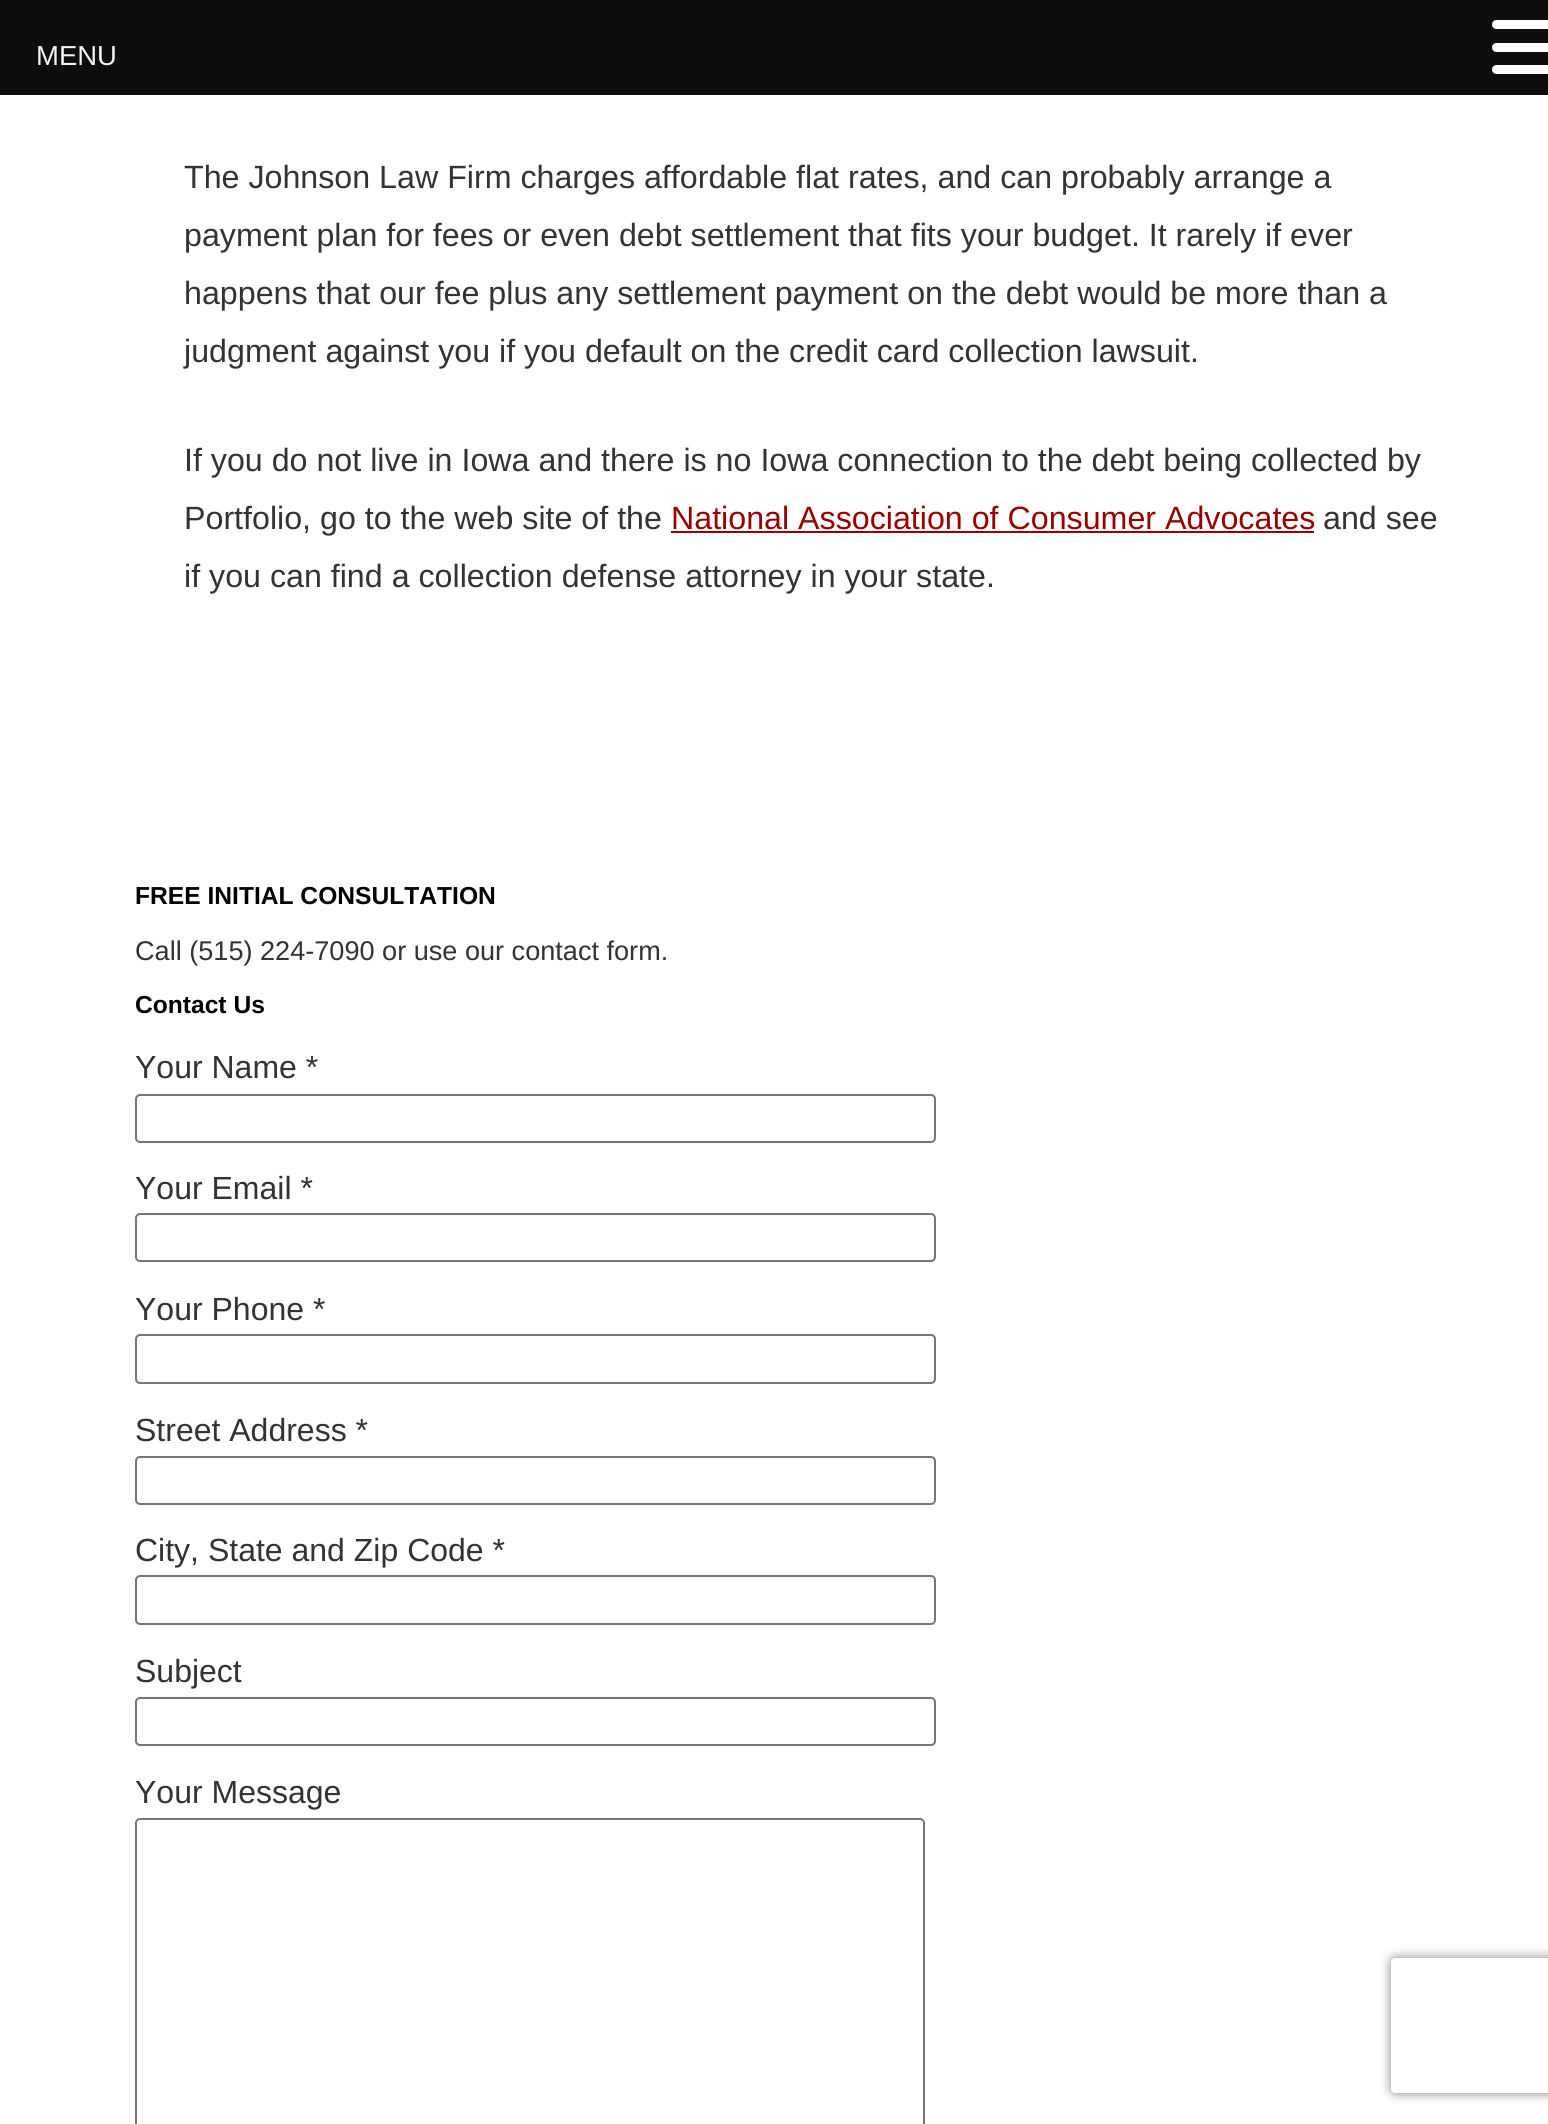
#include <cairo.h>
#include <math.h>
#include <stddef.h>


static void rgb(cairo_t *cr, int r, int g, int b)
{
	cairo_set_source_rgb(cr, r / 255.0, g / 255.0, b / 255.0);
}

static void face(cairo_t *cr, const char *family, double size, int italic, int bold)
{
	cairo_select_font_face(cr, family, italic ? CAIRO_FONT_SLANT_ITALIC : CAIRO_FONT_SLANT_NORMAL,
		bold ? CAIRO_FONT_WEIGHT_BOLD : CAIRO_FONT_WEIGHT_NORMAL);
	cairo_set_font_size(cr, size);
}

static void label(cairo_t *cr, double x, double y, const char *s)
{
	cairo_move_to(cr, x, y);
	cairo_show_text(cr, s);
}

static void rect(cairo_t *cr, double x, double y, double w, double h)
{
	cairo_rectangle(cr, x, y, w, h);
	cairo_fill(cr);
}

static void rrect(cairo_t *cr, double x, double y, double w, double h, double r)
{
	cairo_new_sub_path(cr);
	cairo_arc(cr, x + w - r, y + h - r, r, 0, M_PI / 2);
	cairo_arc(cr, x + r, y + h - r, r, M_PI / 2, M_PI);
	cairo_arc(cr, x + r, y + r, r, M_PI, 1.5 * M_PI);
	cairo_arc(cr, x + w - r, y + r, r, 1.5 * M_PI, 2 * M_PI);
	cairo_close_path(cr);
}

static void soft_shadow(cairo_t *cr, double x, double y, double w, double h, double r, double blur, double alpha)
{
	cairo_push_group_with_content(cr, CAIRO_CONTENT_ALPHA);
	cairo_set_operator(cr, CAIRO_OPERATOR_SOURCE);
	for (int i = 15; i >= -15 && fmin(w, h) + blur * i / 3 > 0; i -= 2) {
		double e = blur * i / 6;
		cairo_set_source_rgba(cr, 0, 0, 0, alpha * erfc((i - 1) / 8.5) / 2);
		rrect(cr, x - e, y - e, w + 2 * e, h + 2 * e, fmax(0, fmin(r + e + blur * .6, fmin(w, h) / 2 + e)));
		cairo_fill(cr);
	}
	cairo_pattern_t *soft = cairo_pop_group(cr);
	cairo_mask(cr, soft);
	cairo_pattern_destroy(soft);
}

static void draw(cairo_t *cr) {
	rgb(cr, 255, 255, 255);
	cairo_paint(cr);
	rgb(cr, 13, 13, 13);
	rect(cr, 0, 0, 1548, 95);
	face(cr, "Liberation Sans", 27.5, 0, 0);
	rgb(cr, 242, 242, 242);
	label(cr, 36, 65, "MENU");
	rgb(cr, 255, 255, 255);
	rrect(cr, 1492, 20, 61, 9, 4.5);
	cairo_fill(cr);
	rrect(cr, 1492, 43, 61, 9, 4.5);
	cairo_fill(cr);
	rrect(cr, 1492, 65, 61, 9, 4.5);
	cairo_fill(cr);
	face(cr, "Liberation Sans", 32.2, 0, 0);
	rgb(cr, 51, 51, 51);
	label(cr, 184, 188, "The Johnson Law Firm charges affordable flat rates, and can probably arrange a");
	label(cr, 184, 246, "payment plan for fees or even debt settlement that fits your budget. It rarely if ever");
	label(cr, 184, 304, "happens that our fee plus any settlement payment on the debt would be more than a");
	label(cr, 184, 362, "judgment against you if you default on the credit card collection lawsuit.");
	label(cr, 184, 471, "If you do not live in Iowa and there is no Iowa connection to the debt being collected by");
	label(cr, 184, 529, "Portfolio, go to the web site of the");
	rgb(cr, 153, 0, 0);
	label(cr, 671, 529, "National Association of Consumer Advocates");
	rect(cr, 671, 531, 643, 2);
	rgb(cr, 51, 51, 51);
	label(cr, 1323, 529, "and see");
	label(cr, 184, 587, "if you can find a collection defense attorney in your state.");
	face(cr, "Liberation Sans", 24.6, 0, 1);
	rgb(cr, 0, 0, 0);
	label(cr, 135, 904, "FREE INITIAL CONSULTATION");
	face(cr, "Liberation Sans", 27.1, 0, 0);
	rgb(cr, 51, 51, 51);
	label(cr, 135, 960, "Call (515) 224-7090 or use our contact form.");
	face(cr, "Liberation Sans", 24.6, 0, 1);
	rgb(cr, 0, 0, 0);
	label(cr, 135, 1013, "Contact Us");
	face(cr, "Liberation Sans", 32, 0, 0);
	rgb(cr, 51, 51, 51);
	label(cr, 135, 1078, "Your Name *");
	rrect(cr, 136, 1095, 799, 47, 4);
	rgb(cr, 118, 118, 118);
	cairo_stroke(cr);
	rgb(cr, 51, 51, 51);
	label(cr, 135, 1199, "Your Email *");
	rrect(cr, 136, 1214, 799, 47, 4);
	rgb(cr, 118, 118, 118);
	cairo_stroke(cr);
	rgb(cr, 51, 51, 51);
	label(cr, 135, 1320, "Your Phone *");
	rrect(cr, 136, 1335, 799, 48, 4);
	rgb(cr, 118, 118, 118);
	cairo_stroke(cr);
	rgb(cr, 51, 51, 51);
	label(cr, 135, 1441, "Street Address *");
	rrect(cr, 136, 1457, 799, 47, 4);
	rgb(cr, 118, 118, 118);
	cairo_stroke(cr);
	rgb(cr, 51, 51, 51);
	label(cr, 135, 1561, "City, State and Zip Code *");
	rrect(cr, 136, 1576, 799, 48, 4);
	rgb(cr, 118, 118, 118);
	cairo_stroke(cr);
	rgb(cr, 51, 51, 51);
	label(cr, 135, 1682, "Subject");
	rrect(cr, 136, 1698, 799, 47, 4);
	rgb(cr, 118, 118, 118);
	cairo_stroke(cr);
	rgb(cr, 51, 51, 51);
	label(cr, 135, 1803, "Your Message");
	rrect(cr, 136, 1819, 788, 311, 4);
	rgb(cr, 118, 118, 118);
	cairo_stroke(cr);
	cairo_save(cr);
	cairo_set_fill_rule(cr, CAIRO_FILL_RULE_EVEN_ODD);
	cairo_new_path(cr);
	cairo_move_to(cr, 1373, 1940);
	cairo_line_to(cr, 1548, 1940);
	cairo_line_to(cr, 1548, 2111);
	cairo_line_to(cr, 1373, 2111);
	cairo_close_path(cr);
	cairo_move_to(cr, 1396, 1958);
	cairo_line_to(cr, 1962, 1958);
	cairo_curve_to(cr, 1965, 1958, 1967, 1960, 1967, 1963);
	cairo_line_to(cr, 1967, 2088);
	cairo_curve_to(cr, 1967, 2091, 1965, 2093, 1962, 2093);
	cairo_line_to(cr, 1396, 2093);
	cairo_curve_to(cr, 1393, 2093, 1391, 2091, 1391, 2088);
	cairo_line_to(cr, 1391, 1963);
	cairo_curve_to(cr, 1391, 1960, 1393, 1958, 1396, 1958);
	cairo_close_path(cr);
	cairo_clip(cr);
	rgb(cr, 128, 128, 128);
	soft_shadow(cr, 1391, 1958, 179, 135, 5, 5.5, 1);
	cairo_restore(cr);
}

int main(void) {
	cairo_surface_t *surface = cairo_image_surface_create(CAIRO_FORMAT_RGB24, 1548, 2124);
	cairo_t *cr = cairo_create(surface);
	cairo_font_options_t *options = cairo_font_options_create();
	cairo_font_options_set_hint_metrics(options, CAIRO_HINT_METRICS_OFF);
	cairo_font_options_set_hint_style(options, CAIRO_HINT_STYLE_NONE);
	cairo_set_font_options(cr, options);
	cairo_set_miter_limit(cr, 4);
	draw(cr);
	cairo_surface_write_to_png(surface, "render.png");
	cairo_font_options_destroy(options);
	cairo_destroy(cr);
	cairo_surface_destroy(surface);
	return 0;
}
